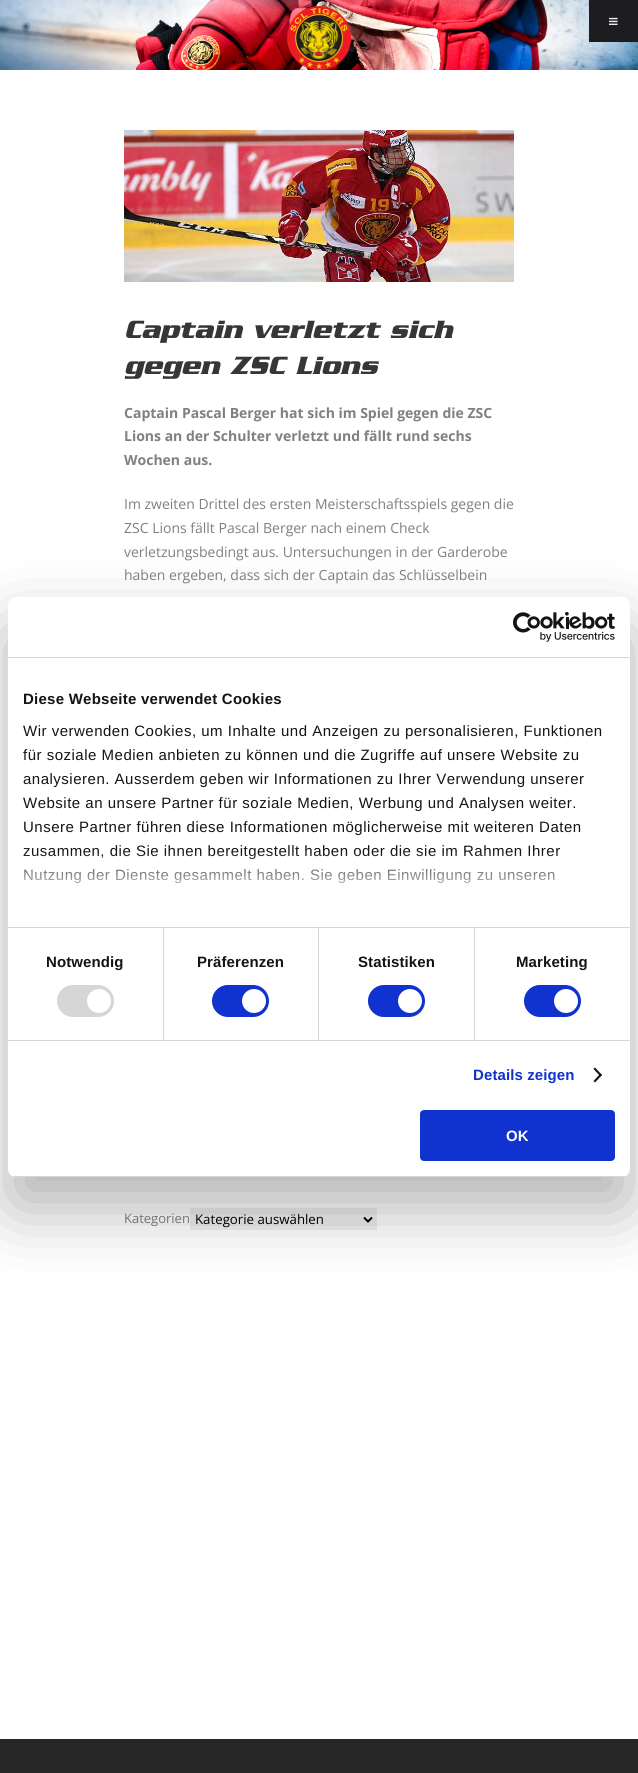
#include <cairo.h>
#include <math.h>
#include <stddef.h>


static void rgb(cairo_t *cr, int r, int g, int b)
{
	cairo_set_source_rgb(cr, r / 255.0, g / 255.0, b / 255.0);
}

static void face(cairo_t *cr, const char *family, double size, int italic, int bold)
{
	cairo_select_font_face(cr, family, italic ? CAIRO_FONT_SLANT_ITALIC : CAIRO_FONT_SLANT_NORMAL,
		bold ? CAIRO_FONT_WEIGHT_BOLD : CAIRO_FONT_WEIGHT_NORMAL);
	cairo_set_font_size(cr, size);
}

static void label(cairo_t *cr, double x, double y, const char *s)
{
	cairo_move_to(cr, x, y);
	cairo_show_text(cr, s);
}

static void tracked(cairo_t *cr, double x, double y, const char *s, double letter, double word)
{
	cairo_move_to(cr, x, y);
	while (*s) {
		char ch[5] = {0};
		int n = 0;
		do ch[n++] = *s++; while ((*s & 0xC0) == 0x80);
		cairo_show_text(cr, ch);
		cairo_rel_move_to(cr, letter + word * (*ch == ' '), 0);
	}
}

static void rect(cairo_t *cr, double x, double y, double w, double h)
{
	cairo_rectangle(cr, x, y, w, h);
	cairo_fill(cr);
}

static void rrect(cairo_t *cr, double x, double y, double w, double h, double r)
{
	cairo_new_sub_path(cr);
	cairo_arc(cr, x + w - r, y + h - r, r, 0, M_PI / 2);
	cairo_arc(cr, x + r, y + h - r, r, M_PI / 2, M_PI);
	cairo_arc(cr, x + r, y + r, r, M_PI, 1.5 * M_PI);
	cairo_arc(cr, x + w - r, y + r, r, 1.5 * M_PI, 2 * M_PI);
	cairo_close_path(cr);
}

static void soft_shadow(cairo_t *cr, double x, double y, double w, double h, double r, double blur, double alpha)
{
	cairo_push_group_with_content(cr, CAIRO_CONTENT_ALPHA);
	cairo_set_operator(cr, CAIRO_OPERATOR_SOURCE);
	for (int i = 15; i >= -15 && fmin(w, h) + blur * i / 3 > 0; i -= 2) {
		double e = blur * i / 6;
		cairo_set_source_rgba(cr, 0, 0, 0, alpha * erfc((i - 1) / 8.5) / 2);
		rrect(cr, x - e, y - e, w + 2 * e, h + 2 * e, fmax(0, fmin(r + e + blur * .6, fmin(w, h) / 2 + e)));
		cairo_fill(cr);
	}
	cairo_pattern_t *soft = cairo_pop_group(cr);
	cairo_mask(cr, soft);
	cairo_pattern_destroy(soft);
}

static void image(cairo_t *cr, const char *path, double x, double y, double w, double h)
{
	cairo_surface_t *image = cairo_image_surface_create_from_png(path);
	cairo_save(cr);
	cairo_set_source_surface(cr, image, x, y);
	cairo_rectangle(cr, x, y, w, h);
	cairo_fill(cr);
	cairo_restore(cr);
	cairo_surface_destroy(image);
}

static void draw(cairo_t *cr) {
	cairo_pattern_t *gradient;
	rgb(cr, 255, 255, 255);
	cairo_paint(cr);
	image(cr, "image1.png", 0, 0, 638, 70);
	rgb(cr, 29, 29, 32);
	rect(cr, 589, 0, 49, 42);
	image(cr, "image0.png", 609, 17, 9, 8);
	image(cr, "image2.png", 287, 6, 64, 64);
	image(cr, "image3.png", 124, 130, 390, 152);
	face(cr, "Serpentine", 27, 1, 1);
	rgb(cr, 54, 54, 54);
	label(cr, 124, 338, "Captain verletzt sich");
	label(cr, 124, 374, "gegen ZSC Lions");
	face(cr, "Open Sans", 14, 0, 1);
	rgb(cr, 128, 128, 128);
	label(cr, 124, 418, "Captain Pascal Berger hat sich im Spiel gegen die ZSC");
	label(cr, 124, 441, "Lions an der Schulter verletzt und fällt rund sechs");
	label(cr, 124, 465, "Wochen aus.");
	face(cr, "Open Sans", 14, 0, 0);
	label(cr, 124, 509, "Im zweiten Drittel des ersten Meisterschaftsspiels gegen die");
	label(cr, 124, 533, "ZSC Lions fällt Pascal Berger nach einem Check");
	label(cr, 124, 557, "verletzungsbedingt aus. Untersuchungen in der Garderobe");
	label(cr, 124, 580, "haben ergeben, dass sich der Captain das Schlüsselbein");
	face(cr, "Open Sans", 13, 0, 0);
	label(cr, 124, 1223, "Kategorien");
	rgb(cr, 239, 239, 239);
	rect(cr, 190, 1208, 187, 22);
	cairo_new_path(cr);
	cairo_move_to(cr, 364, 1217.5);
	cairo_line_to(cr, 368, 1221.5);
	cairo_line_to(cr, 372, 1217.5);
	rgb(cr, 0, 0, 0);
	cairo_stroke(cr);
	face(cr, "Open Sans", 13.25, 0, 0);
	label(cr, 195, 1224, "Kategorie auswählen");
	rgb(cr, 38, 38, 38);
	rect(cr, 0, 1739, 638, 34);
	rgb(cr, 0, 0, 0);
	soft_shadow(cr, 8, 629, 622, 580, 8, 34, 0.3);
	rgb(cr, 255, 255, 255);
	rrect(cr, 8, 597, 622, 580, 8);
	cairo_fill(cr);
	rgb(cr, 214, 214, 214);
	rect(cr, 8, 657, 622, 1);
	image(cr, "image4.png", 513, 612, 102, 30);
	rect(cr, 8, 927, 622, 1);
	face(cr, "Liberation Sans", 15, 0, 1);
	rgb(cr, 20, 20, 20);
	tracked(cr, 23, 704, "Diese Webseite verwendet Cookies", 0.25, 0);
	face(cr, "Liberation Sans", 15, 0, 0);
	tracked(cr, 23, 736, "Wir verwenden Cookies, um Inhalte und Anzeigen zu personalisieren, Funktionen", 0.5, 0);
	tracked(cr, 23, 760, "für soziale Medien anbieten zu können und die Zugriffe auf unsere Website zu", 0.5, 0);
	tracked(cr, 23, 784, "analysieren. Ausserdem geben wir Informationen zu Ihrer Verwendung unserer", 0.5, 0);
	tracked(cr, 23, 808, "Website an unsere Partner für soziale Medien, Werbung und Analysen weiter.", 0.5, 0);
	tracked(cr, 23, 832, "Unsere Partner führen diese Informationen möglicherweise mit weiteren Daten", 0.5, 0);
	tracked(cr, 23, 856, "zusammen, die Sie ihnen bereitgestellt haben oder die sie im Rahmen Ihrer", 0.5, 0);
	tracked(cr, 23, 880, "Nutzung der Dienste gesammelt haben. Sie geben Einwilligung zu unseren", 0.5, 0);
	gradient = cairo_pattern_create_linear(313, 927, 313, 852);
	cairo_pattern_add_color_stop_rgba(gradient, 0, 1, 1, 1, 1);
	cairo_pattern_add_color_stop_rgba(gradient, 0.5, 1, 1, 1, 0.8);
	cairo_pattern_add_color_stop_rgba(gradient, 1, 1, 1, 1, 0);
	cairo_set_source(cr, gradient);
	cairo_pattern_destroy(gradient);
	rect(cr, 23, 853, 535, 31);
	rgb(cr, 214, 214, 214);
	rect(cr, 8, 1040, 622, 1);
	rect(cr, 163, 928, 1, 112);
	face(cr, "Liberation Sans", 15, 0, 1);
	rgb(cr, 20, 20, 20);
	tracked(cr, 46, 967, "Notwendig", 0.1, 0);
	rgb(cr, 214, 214, 214);
	rrect(cr, 57, 985, 57, 32, 16);
	cairo_fill(cr);
	rgb(cr, 255, 255, 255);
	cairo_arc(cr, 99, 1001, 12, 0, 2 * M_PI);
	cairo_fill(cr);
	rgb(cr, 214, 214, 214);
	rect(cr, 318, 928, 1, 112);
	rgb(cr, 20, 20, 20);
	tracked(cr, 197, 967, "Präferenzen", 0.1, 0);
	rgb(cr, 16, 50, 207);
	rrect(cr, 212, 985, 57, 32, 16);
	cairo_fill(cr);
	rgb(cr, 255, 255, 255);
	cairo_arc(cr, 254, 1001, 12, 0, 2 * M_PI);
	cairo_fill(cr);
	rgb(cr, 214, 214, 214);
	rect(cr, 474, 928, 1, 112);
	rgb(cr, 20, 20, 20);
	tracked(cr, 358, 967, "Statistiken", 0.1, 0);
	rgb(cr, 16, 50, 207);
	rrect(cr, 368, 985, 57, 32, 16);
	cairo_fill(cr);
	rgb(cr, 255, 255, 255);
	cairo_arc(cr, 410, 1001, 12, 0, 2 * M_PI);
	cairo_fill(cr);
	rgb(cr, 20, 20, 20);
	tracked(cr, 516, 967, "Marketing", 0.1, 0);
	rgb(cr, 16, 50, 207);
	rrect(cr, 524, 985, 57, 32, 16);
	cairo_fill(cr);
	rgb(cr, 255, 255, 255);
	cairo_arc(cr, 566, 1001, 12, 0, 2 * M_PI);
	cairo_fill(cr);
	rgb(cr, 16, 50, 207);
	tracked(cr, 473, 1080, "Details zeigen", 0.1, 0);
	rgb(cr, 20, 20, 20);
	cairo_new_path(cr);
	cairo_move_to(cr, 595, 1067.5);
	cairo_line_to(cr, 602, 1075);
	cairo_line_to(cr, 600.5, 1076.5);
	cairo_line_to(cr, 593.5, 1069);
	cairo_close_path(cr);
	cairo_fill(cr);
	cairo_new_path(cr);
	cairo_move_to(cr, 600.5, 1073.5);
	cairo_line_to(cr, 602, 1075);
	cairo_line_to(cr, 595, 1082.5);
	cairo_line_to(cr, 593.5, 1081);
	cairo_close_path(cr);
	cairo_fill(cr);
	cairo_save(cr);
	rrect(cr, 8, 597, 622, 580, 8);
	cairo_clip(cr);
	rgb(cr, 214, 214, 214);
	rect(cr, 8, 1176, 622, 1);
	cairo_restore(cr);
	rgb(cr, 16, 50, 207);
	rrect(cr, 421, 1111, 193, 49, 3);
	cairo_fill_preserve(cr);
	cairo_stroke(cr);
	rgb(cr, 255, 255, 255);
	label(cr, 506, 1141, "OK");
}

int main(void) {
	cairo_surface_t *surface = cairo_image_surface_create(CAIRO_FORMAT_RGB24, 638, 1773);
	cairo_t *cr = cairo_create(surface);
	cairo_font_options_t *options = cairo_font_options_create();
	cairo_font_options_set_hint_metrics(options, CAIRO_HINT_METRICS_OFF);
	cairo_font_options_set_hint_style(options, CAIRO_HINT_STYLE_NONE);
	cairo_set_font_options(cr, options);
	cairo_set_miter_limit(cr, 4);
	draw(cr);
	cairo_surface_write_to_png(surface, "render.png");
	cairo_font_options_destroy(options);
	cairo_destroy(cr);
	cairo_surface_destroy(surface);
	return 0;
}
